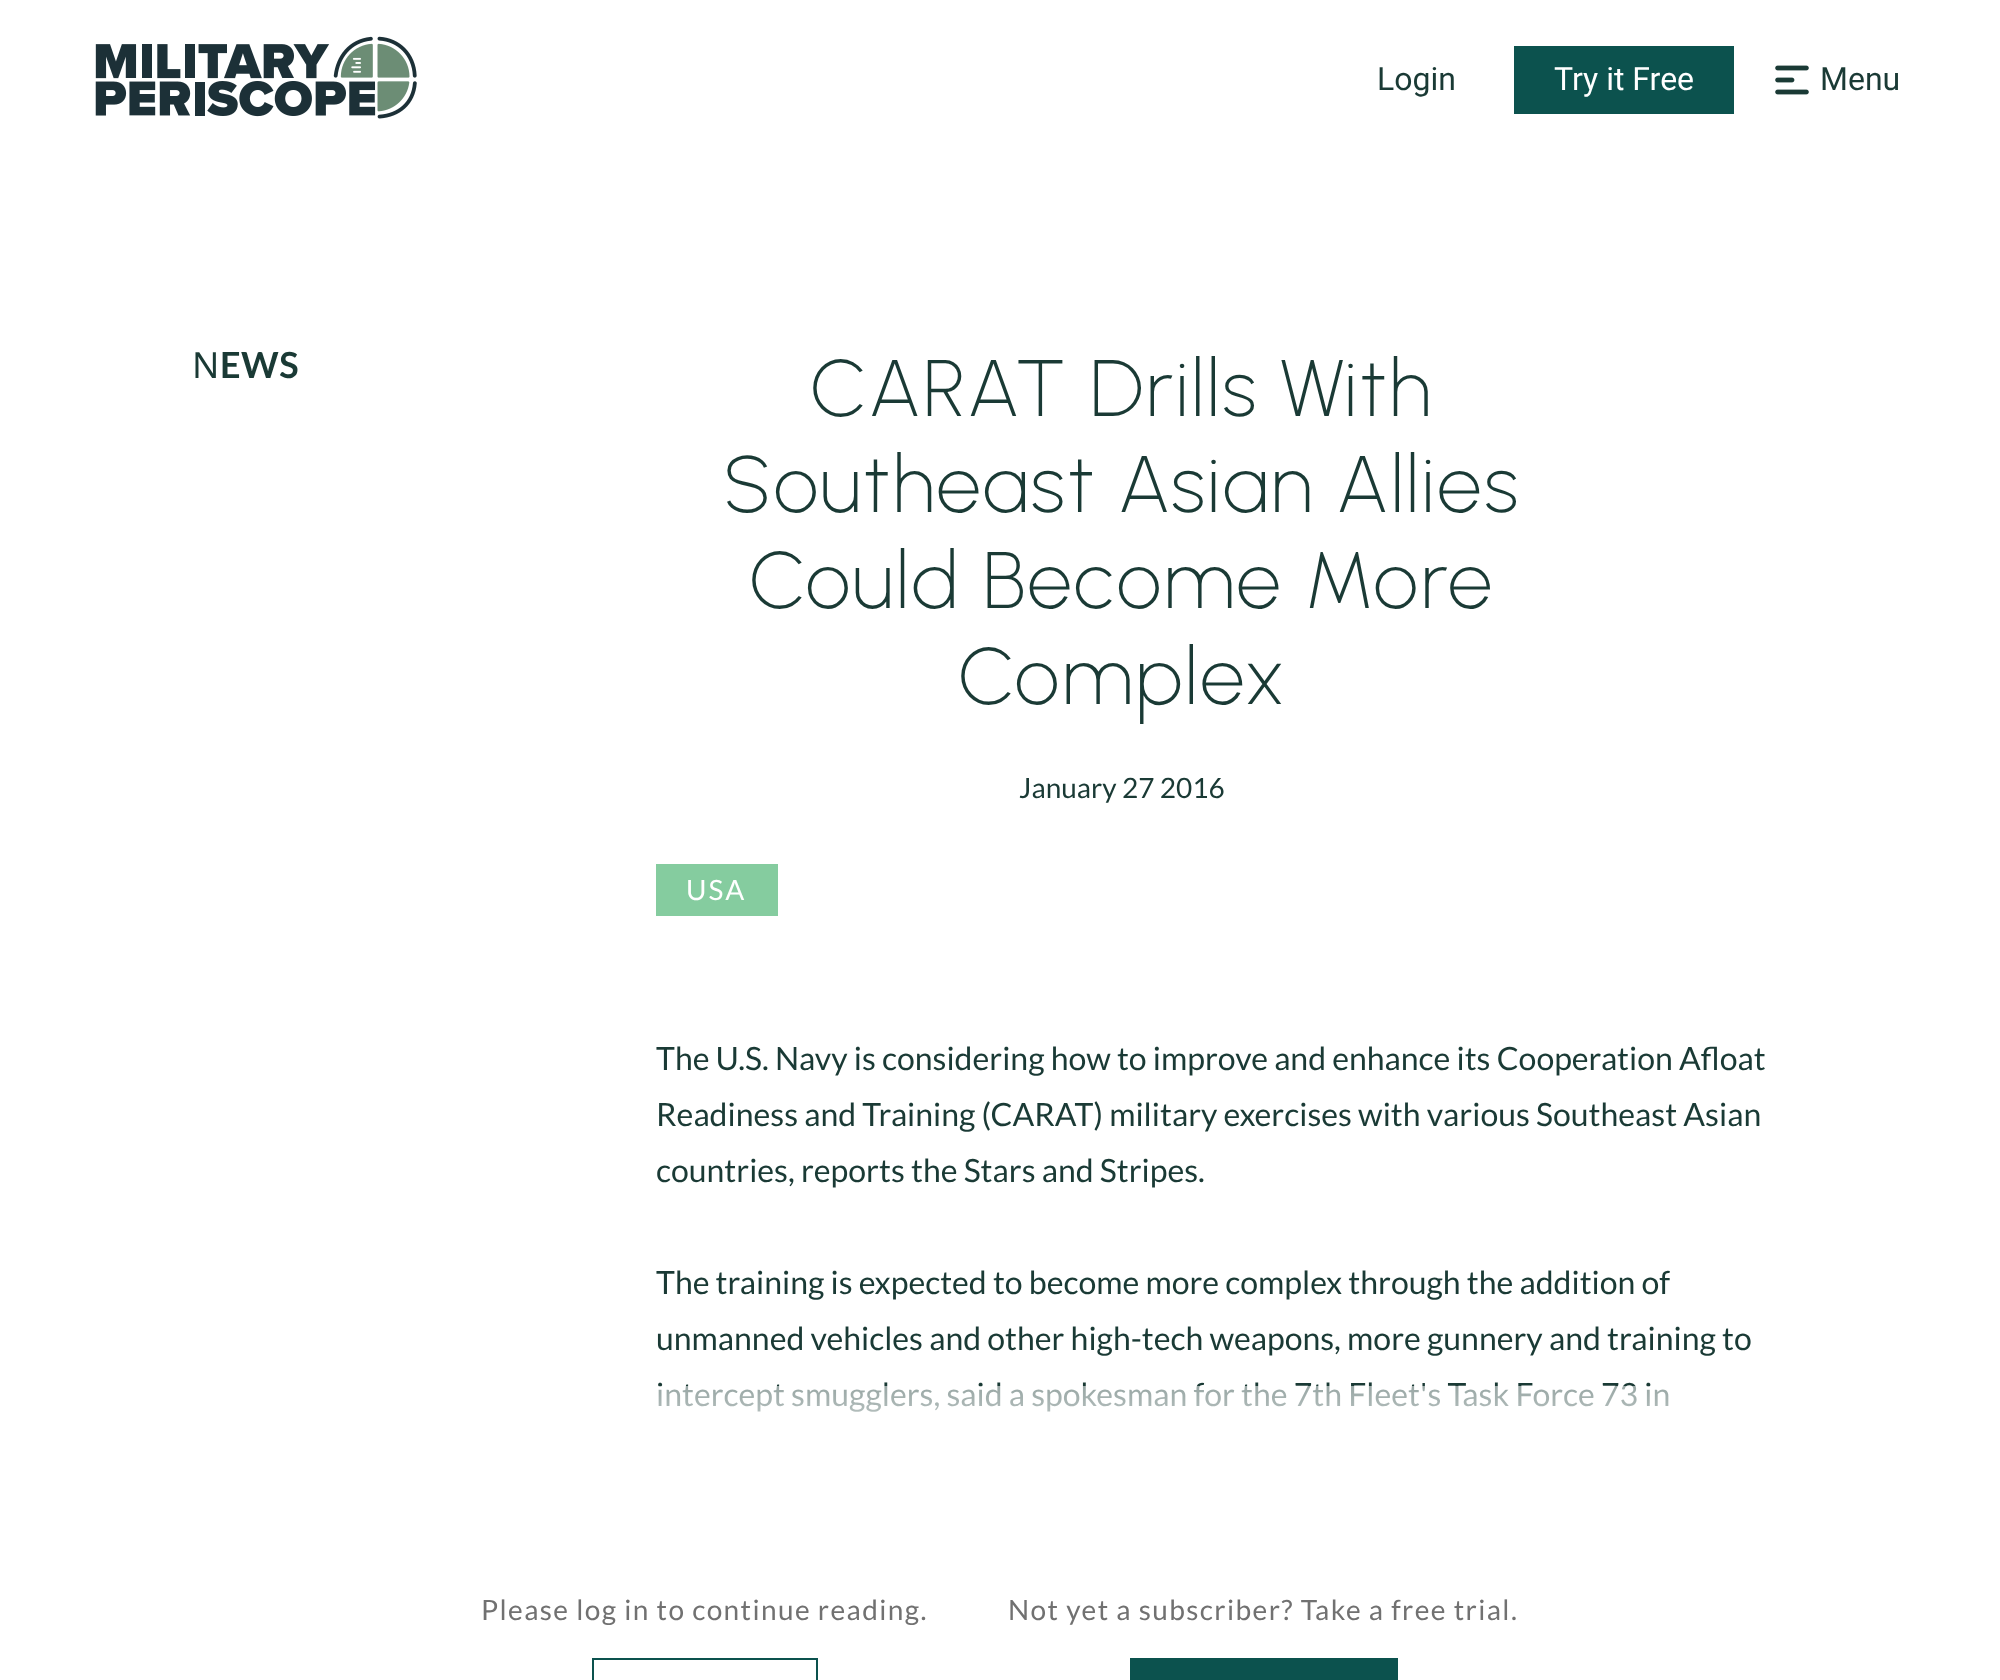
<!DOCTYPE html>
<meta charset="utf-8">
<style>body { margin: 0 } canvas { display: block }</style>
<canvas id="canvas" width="2000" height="1680"></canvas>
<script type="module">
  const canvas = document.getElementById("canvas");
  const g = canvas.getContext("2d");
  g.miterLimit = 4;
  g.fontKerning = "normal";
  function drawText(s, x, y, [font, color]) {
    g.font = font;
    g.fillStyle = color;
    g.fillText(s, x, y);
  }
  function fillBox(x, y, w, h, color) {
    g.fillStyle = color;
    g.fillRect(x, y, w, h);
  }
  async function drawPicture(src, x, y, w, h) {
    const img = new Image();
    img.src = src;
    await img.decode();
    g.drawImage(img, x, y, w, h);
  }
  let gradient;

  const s1 = ["32px Roboto", "#1A3A35"];
  const s2 = ["32px Roboto", "#FFFFFF"];
  const s3 = ["36px Noto Sans", "#1A3A35"];
  const s4 = ["bold 36px Lato", "#1A3A35"];
  const s5 = ["200 80px Urbanist", "#1A3A35"];
  const s6 = ["28px Lato", "#1A3A35"];
  const s7 = ["28px Lato", "#FFFFFF"];
  const s8 = ["32px Lato", "#1A3A35"];
  const s9 = ["28px Lato", "#717171"];

  fillBox(0, 0, 2000, 1680, "#FFFFFF");
  await drawPicture("pic1.png", 95, 36, 322, 83);
  drawText("Login", 1377, 90, s1);
  fillBox(1514, 46, 220, 68, "#0C524E");
  drawText("Try it Free", 1554, 90, s2);
  await drawPicture("pic2.png", 1775, 65, 34, 30);
  drawText("Menu", 1820, 90, s1);
  g.letterSpacing = "0.5px";
  drawText("N", 192, 378, s3);
  drawText("EWS", 220, 378, s4);
  g.letterSpacing = "2.4px";
  drawText("CARAT Drills With", 810, 416, s5);
  drawText("Southeast Asian Allies", 723, 512, s5);
  drawText("Could Become More", 749, 608, s5);
  drawText("Complex", 958, 704, s5);
  g.letterSpacing = "0px";
  drawText("January 27 2016", 1019, 798, s6);
  fillBox(656, 864, 122, 52, "#85CC9F");
  g.letterSpacing = "2px";
  drawText("USA", 686, 900, s7);
  g.letterSpacing = "0px";
  drawText("The U.S. Navy is considering how to improve and enhance its Cooperation Afloat", 656, 1070, s8);
  drawText("Readiness and Training (CARAT) military exercises with various Southeast Asian", 656, 1126, s8);
  drawText("countries, reports the Stars and Stripes.", 656, 1182, s8);
  drawText("The training is expected to become more complex through the addition of", 656, 1294, s8);
  drawText("unmanned vehicles and other high-tech weapons, more gunnery and training to", 656, 1350, s8);
  drawText("intercept smugglers, said a spokesman for the 7th Fleet's Task Force 73 in", 656, 1406, s8);
  gradient = g.createLinearGradient(1000, 1506, 1000, 1256);
  gradient.addColorStop(0.06, "#FFFFFF");
  gradient.addColorStop(1, "rgba(255, 255, 255, 0)");
  g.fillStyle = gradient;
  g.fillRect(658, 1386, 1011, 26);
  g.letterSpacing = "1.4px";
  drawText("Please log in to continue reading.", 481, 1620, s9);
  g.strokeStyle = "#0C524E";
  g.lineWidth = 2;
  g.strokeRect(593, 1659, 224, 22);
  drawText("Not yet a subscriber? Take a free trial.", 1008, 1620, s9);
  fillBox(1130, 1658, 268, 22, "#0C524E");
</script>
